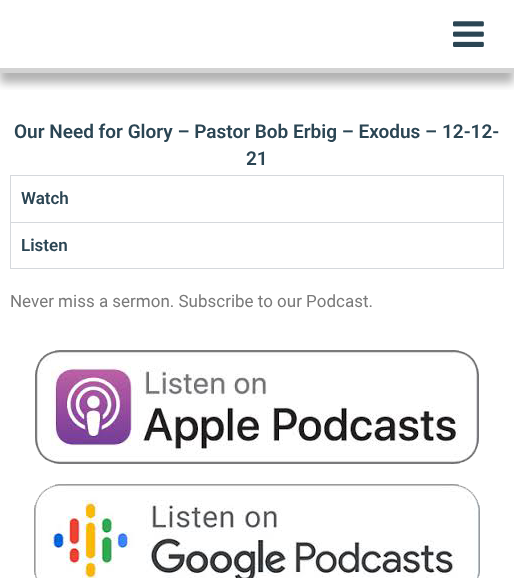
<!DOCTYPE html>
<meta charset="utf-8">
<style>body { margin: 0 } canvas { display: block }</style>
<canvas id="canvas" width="514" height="578"></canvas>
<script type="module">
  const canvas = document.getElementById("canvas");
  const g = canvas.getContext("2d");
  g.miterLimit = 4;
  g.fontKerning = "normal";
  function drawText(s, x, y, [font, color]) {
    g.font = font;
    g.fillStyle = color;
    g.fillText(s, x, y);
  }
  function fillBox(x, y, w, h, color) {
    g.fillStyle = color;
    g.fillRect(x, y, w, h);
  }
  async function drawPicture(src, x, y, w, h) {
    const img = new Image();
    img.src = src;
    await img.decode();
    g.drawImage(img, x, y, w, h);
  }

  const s1 = ["600 19px Roboto", "#2B4553"];
  const s2 = ["600 17px Roboto", "#2B4553"];
  const s3 = ["17px Roboto", "#7A7A7A"];

  fillBox(0, 0, 514, 578, "#FFFFFF");
  g.save();
  g.beginPath();
  g.rect(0, 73, 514, 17);
  g.clip();
  g.fillStyle = "rgba(0, 0, 0, 0.3)";
  g.filter = "blur(5px)";
  g.beginPath();
  g.rect(0, 10, 514, 73);
  g.fill();
  g.filter = "none";
  g.restore();
  fillBox(0, 68, 514, 5, "#D3D3D3");
  await drawPicture("pic1.png", 453, 21, 31, 26);
  drawText("Our Need for Glory – Pastor Bob Erbig – Exodus – 12-12-", 14, 138, s1);
  drawText("21", 246, 165, s1);
  fillBox(10, 268, 494, 1, "#D5D8DC");
  fillBox(10, 175, 494, 1, "#D5D8DC");
  fillBox(503, 175, 1, 47, "#D5D8DC");
  fillBox(10, 175, 1, 47, "#D5D8DC");
  drawText("Watch", 21, 204, s2);
  fillBox(10, 222, 494, 1, "#D5D8DC");
  fillBox(503, 222, 1, 46, "#D5D8DC");
  fillBox(10, 222, 1, 46, "#D5D8DC");
  drawText("Listen", 21, 251, s2);
  drawText("Never miss a sermon. Subscribe to our Podcast.", 10, 307, s3);
  await drawPicture("pic2.png", 35, 350, 444, 114);
  await drawPicture("pic3.png", 34, 484, 446, 94);
</script>
